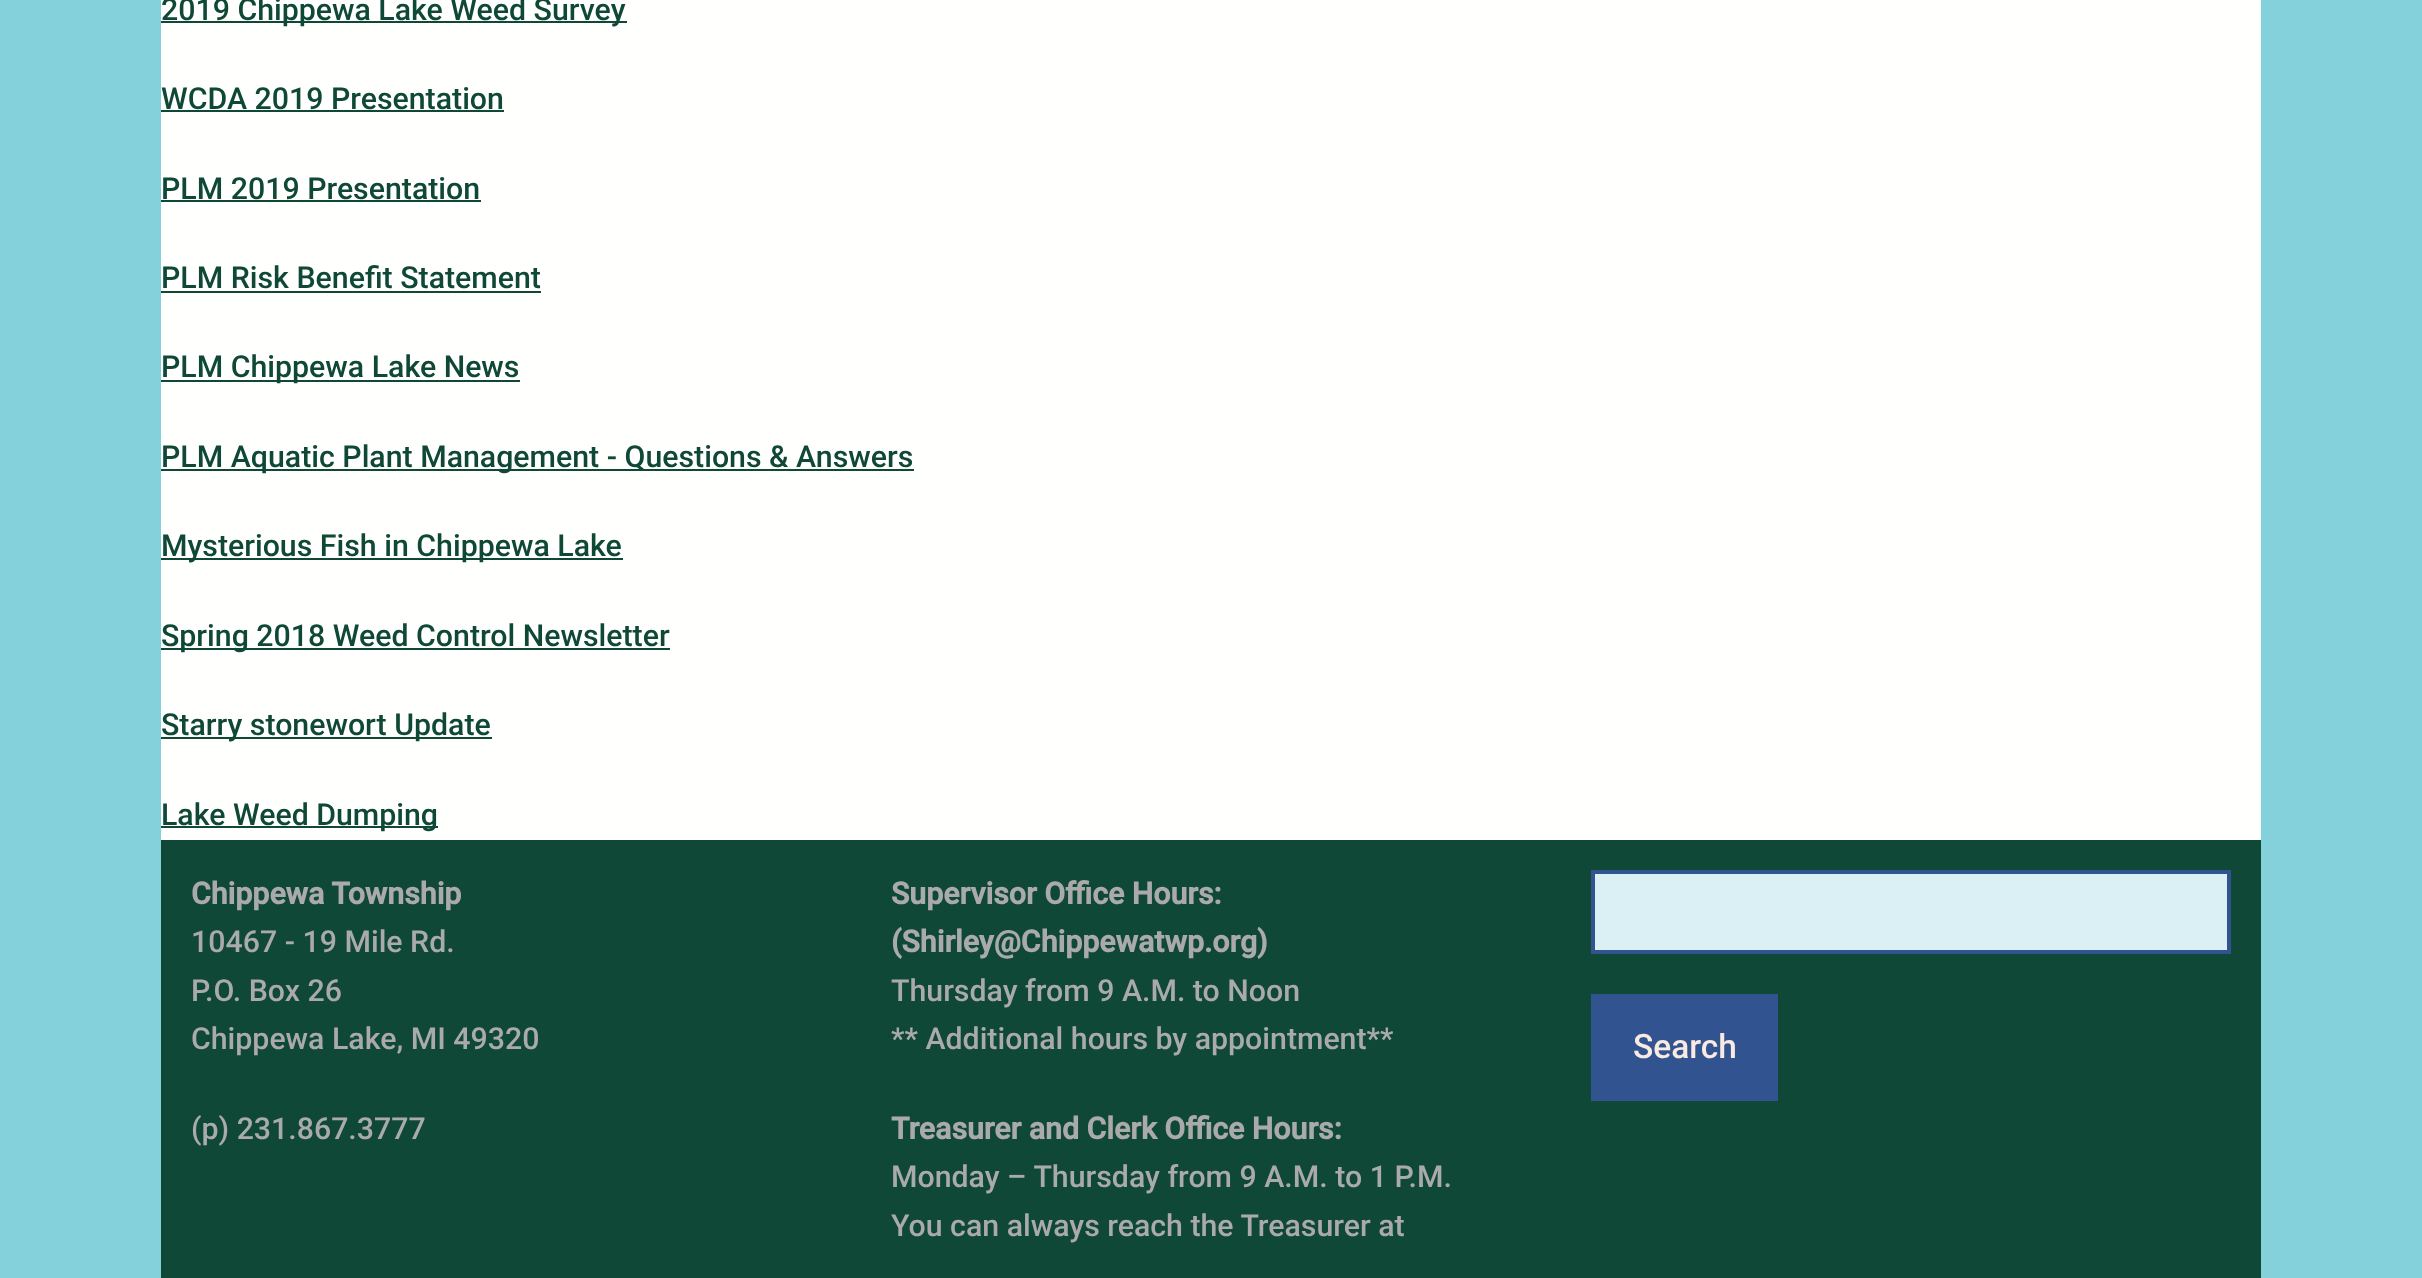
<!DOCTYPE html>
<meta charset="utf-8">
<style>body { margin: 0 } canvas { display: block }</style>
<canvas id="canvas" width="2422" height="1278"></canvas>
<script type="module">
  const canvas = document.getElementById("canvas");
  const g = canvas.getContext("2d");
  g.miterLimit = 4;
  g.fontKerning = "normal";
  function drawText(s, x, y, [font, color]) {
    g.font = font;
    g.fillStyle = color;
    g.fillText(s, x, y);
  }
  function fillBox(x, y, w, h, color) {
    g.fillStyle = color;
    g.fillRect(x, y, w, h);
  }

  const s1 = ["500 30.3px Roboto", "#0F4837"];
  const s2 = ["bold 30.3px Roboto", "#AAAAAA"];
  const s3 = ["500 30.3px Roboto", "#AAAAAA"];
  const s4 = ["500 33.5px Roboto", "#F9EAE2"];

  fillBox(0, 0, 2422, 1278, "#84D1DB");
  fillBox(161, 0, 2100, 840, "#FFFFFE");
  fillBox(161, 21, 466, 2, "#0F4837");
  drawText("2019 Chippewa Lake Weed Survey", 161, 20, s1);
  drawText("WCDA 2019 Presentation", 161, 109, s1);
  fillBox(161, 110, 343, 2, "#0F4837");
  drawText("PLM 2019 Presentation", 161, 199, s1);
  fillBox(161, 200, 320, 2, "#0F4837");
  drawText("PLM Risk Benefit Statement", 161, 288, s1);
  fillBox(161, 291, 380, 2, "#0F4837");
  fillBox(161, 380, 359, 2, "#0F4837");
  drawText("PLM Chippewa Lake News", 161, 377, s1);
  fillBox(161, 469, 753, 2, "#0F4837");
  drawText("PLM Aquatic Plant Management - Questions & Answers", 161, 467, s1);
  fillBox(161, 558, 462, 2, "#0F4837");
  drawText("Mysterious Fish in Chippewa Lake", 161, 556, s1);
  fillBox(161, 648, 509, 2, "#0F4837");
  drawText("Spring 2018 Weed Control Newsletter", 161, 646, s1);
  fillBox(161, 737, 331, 2, "#0F4837");
  drawText("Starry stonewort Update", 161, 735, s1);
  fillBox(161, 826, 277, 2, "#0F4837");
  drawText("Lake Weed Dumping", 161, 825, s1);
  fillBox(161, 840, 2100, 438, "#0F4837");
  drawText("Chippewa Township", 191, 904, s2);
  drawText("10467 - 19 Mile Rd.", 191, 952, s3);
  drawText("P.O. Box 26", 191, 1001, s3);
  drawText("Chippewa Lake, MI 49320", 191, 1049, s3);
  drawText("(p) 231.867.3777", 191, 1139, s3);
  drawText("Supervisor Office Hours:", 891, 904, s2);
  drawText("(Shirley@Chippewatwp.org)", 891, 952, s2);
  drawText("Thursday from 9 A.M. to Noon", 891, 1001, s3);
  drawText("** Additional hours by appointment**", 891, 1049, s3);
  drawText("Treasurer and Clerk Office Hours:", 891, 1139, s2);
  drawText("Monday – Thursday from 9 A.M. to 1 P.M.", 891, 1187, s3);
  drawText("You can always reach the Treasurer at", 891, 1236, s3);
  g.fillStyle = "#DBF0F5";
  g.beginPath();
  g.rect(1593, 872, 636, 80);
  g.fill();
  g.strokeStyle = "#315390";
  g.lineWidth = 4;
  g.stroke();
  fillBox(1591, 994, 187, 107, "#315390");
  drawText("Search", 1633, 1058, s4);
</script>
